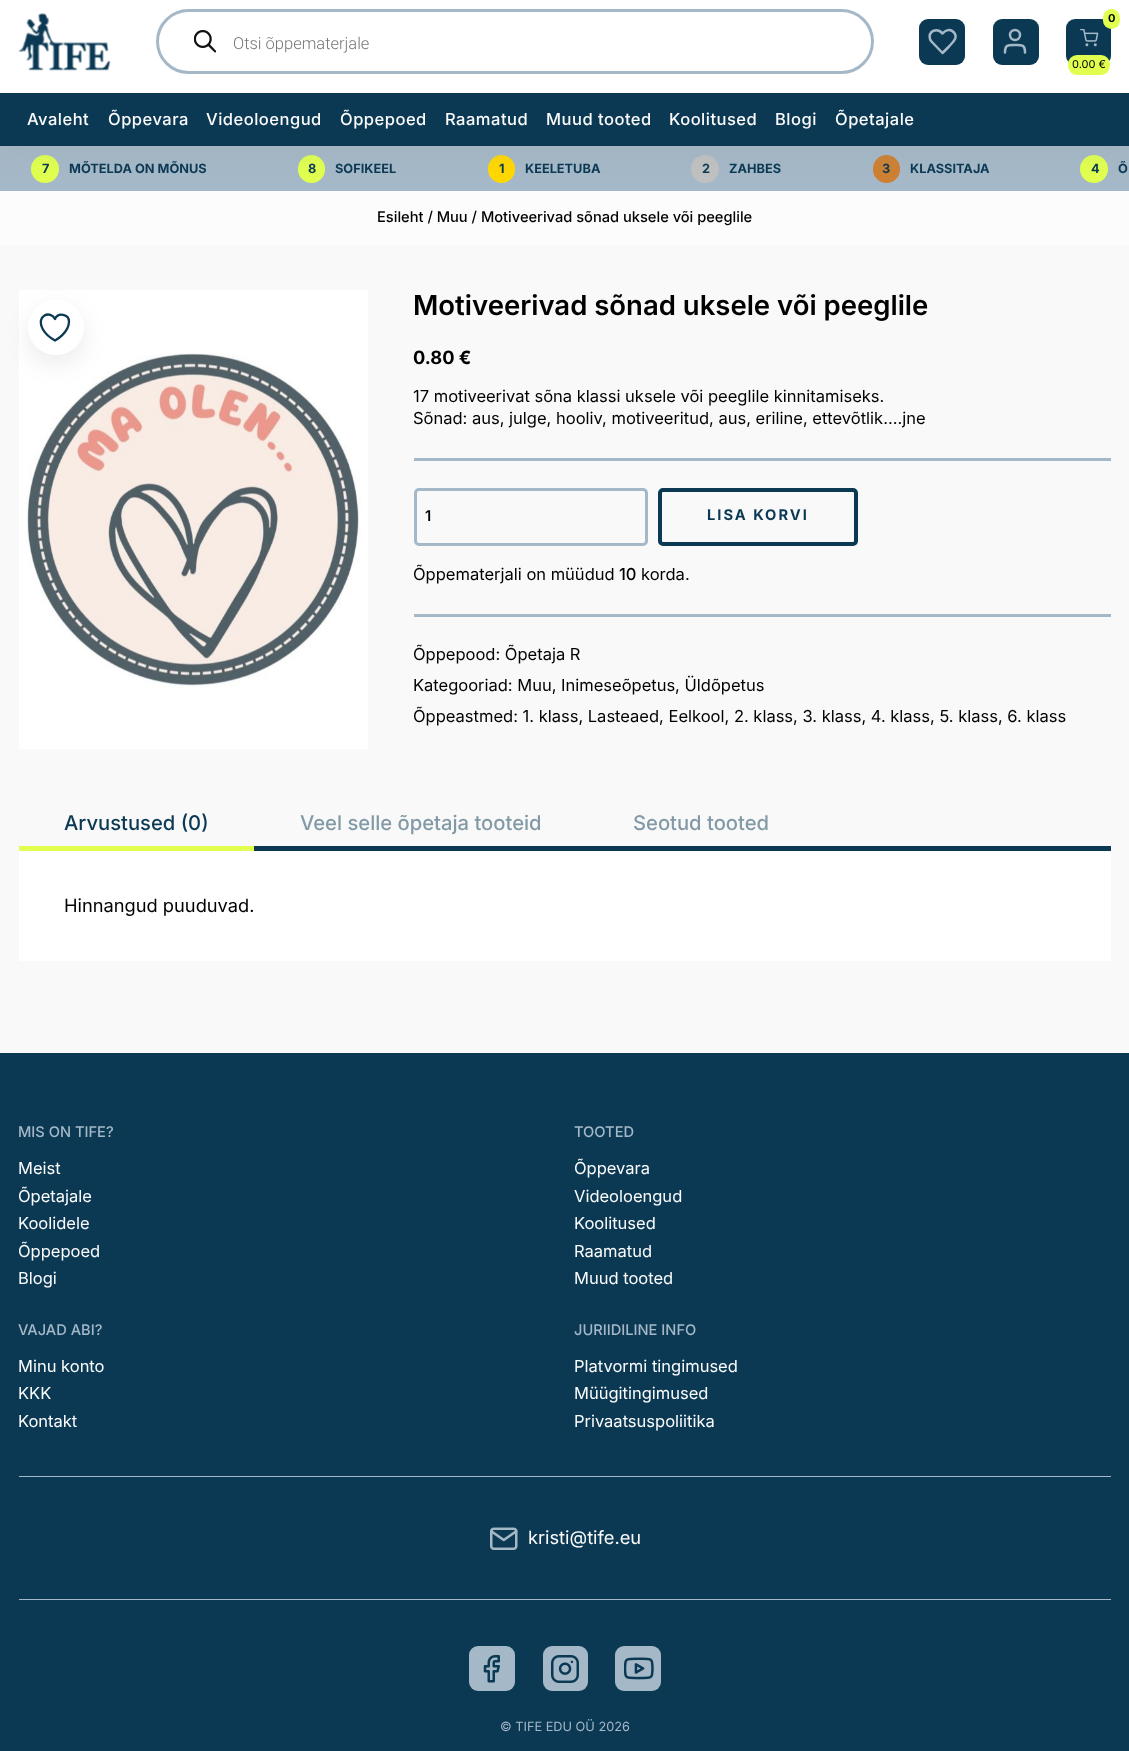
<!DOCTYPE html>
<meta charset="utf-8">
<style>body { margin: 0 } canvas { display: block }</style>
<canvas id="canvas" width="1129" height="1751"></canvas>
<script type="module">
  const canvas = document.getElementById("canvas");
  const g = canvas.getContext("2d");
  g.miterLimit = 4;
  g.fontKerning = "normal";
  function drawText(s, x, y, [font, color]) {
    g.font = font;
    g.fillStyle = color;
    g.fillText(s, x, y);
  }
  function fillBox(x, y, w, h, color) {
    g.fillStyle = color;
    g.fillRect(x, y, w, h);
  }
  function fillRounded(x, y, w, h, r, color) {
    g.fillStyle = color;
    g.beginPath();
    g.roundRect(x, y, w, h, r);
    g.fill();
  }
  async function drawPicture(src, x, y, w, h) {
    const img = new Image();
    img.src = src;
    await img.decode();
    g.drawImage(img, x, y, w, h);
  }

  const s1 = ["300 16.5px Roboto", "#777777"];
  const s2 = ["bold 11px Inter", "#000000"];
  const s3 = ["11px Inter", "#000000"];
  const s4 = ["500 16.5px Inter", "#FCFCFC"];
  const s5 = ["bold 12.75px Inter", "#0B3954"];
  const s6 = ["500 14.65px Inter", "#000000"];
  const s7 = ["600 27.5px Inter", "#000000"];
  const s8 = ["bold 18.25px Inter", "#000000"];
  const s9 = ["16.5px Inter", "#000000"];
  const s10 = ["600 14.65px Inter", "#000000"];
  const s11 = ["bold 14.65px Inter", "#0B3954"];
  const s12 = ["500 16.5px Inter", "#000000"];
  const s13 = ["500 20.2px Inter", "#0B3954"];
  const s14 = ["500 20.2px Inter", "#8299A6"];
  const s15 = ["18.25px Inter", "#000000"];
  const s16 = ["500 14.65px Inter", "#A5B8C7"];
  const s17 = ["16.5px Inter", "#FCFCFC"];
  const s18 = ["18.25px Inter", "#FCFCFC"];
  const s19 = ["12.75px Inter", "#A5B8C7"];

  fillBox(0, 0, 1129, 1751, "#F9F9F9");
  fillBox(0, 146, 1129, 45, "#A5B8C7");
  g.fillStyle = "#E0FF4F";
  g.beginPath();
  g.arc(45, 169, 14, 0, Math.PI * 2);
  g.fill();
  fillRounded(298, 155, 27, 28, 13.5, "#E0FF4F");
  fillRounded(488, 155, 27, 28, 13.5, "#FFD700");
  g.fillStyle = "#C0C0C0";
  g.beginPath();
  g.arc(705, 169, 14, 0, Math.PI * 2);
  g.fill();
  fillRounded(873, 155, 27, 28, 13.5, "#CD7F32");
  g.fillStyle = "#E0FF4F";
  g.beginPath();
  g.arc(1094, 169, 14, 0, Math.PI * 2);
  g.fill();
  g.fillStyle = "rgba(150, 158, 166, 0.2)";
  g.filter = "blur(11px)";
  g.beginPath();
  g.rect(0, 8, 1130, 146);
  g.fill();
  g.filter = "none";
  fillBox(0, 0, 1129, 93, "#FFFFFF");
  await drawPicture("pic1.png", 18, 13, 93, 58);
  g.beginPath();
  g.roundRect(157.5, 10.5, 715, 62, 31);
  g.strokeStyle = "#A5B8C7";
  g.lineWidth = 3;
  g.stroke();
  await drawPicture("pic2.png", 194, 30, 22, 23);
  drawText("Otsi õppematerjale", 233, 49, s1);
  fillRounded(919, 19, 46, 46, 9, "#0B3954");
  g.beginPath();
  g.moveTo(953.5, 32);
  g.bezierCurveTo(950, 28.5, 945.5, 30, 942.5, 33.5);
  g.lineTo(941, 32);
  g.bezierCurveTo(938.5, 29.5, 934, 29.5, 931.5, 32);
  g.bezierCurveTo(929, 34.5, 929, 39, 931.5, 41.5);
  g.lineTo(942.5, 53);
  g.lineTo(949, 46.5);
  g.bezierCurveTo(952.5, 42.5, 959, 37.5, 953.5, 32);
  g.closePath();
  g.lineWidth = 2.5;
  g.lineCap = "round";
  g.lineJoin = "round";
  g.stroke();
  fillRounded(993, 19, 46, 46, 9, "#0B3954");
  g.beginPath();
  g.moveTo(1025, 52.5);
  g.bezierCurveTo(1025, 44.5, 1022, 45, 1015, 45);
  g.bezierCurveTo(1008, 45, 1005, 44.5, 1005, 52.5);
  g.stroke();
  g.beginPath();
  g.arc(1015, 35, 5, 0, Math.PI * 2);
  g.stroke();
  fillRounded(1066, 19, 45, 46, 9, "#0B3954");
  fillRounded(1103, 9, 17, 20, 8.5, "#E0FF4F");
  drawText("0", 1108, 22, s2);
  await drawPicture("pic3.png", 1080, 29, 19, 18);
  fillRounded(1068, 55, 42, 20, 9, "#E0FF4F");
  drawText("0.00 €", 1072, 68, s3);
  fillBox(0, 93, 1129, 53, "#0B3954");
  g.letterSpacing = "0.5px";
  drawText("Avaleht", 27, 125, s4);
  drawText("Õppevara", 108, 125, s4);
  drawText("Videoloengud", 206, 125, s4);
  drawText("Õppepoed", 340, 125, s4);
  drawText("Raamatud", 445, 125, s4);
  drawText("Muud tooted", 546, 125, s4);
  drawText("Koolitused", 669, 125, s4);
  drawText("Blogi", 775, 125, s4);
  drawText("Õpetajale", 835, 125, s4);
  g.letterSpacing = "0px";
  drawText("7", 42, 173, s5);
  drawText("MÕTELDA ON MÕNUS", 69, 173, s5);
  drawText("8", 308, 173, s5);
  drawText("SOFIKEEL", 335, 173, s5);
  drawText("1", 499, 173, s5);
  drawText("KEELETUBA", 525, 173, s5);
  drawText("2", 702, 173, s5);
  drawText("ZAHBES", 729, 173, s5);
  drawText("3", 882, 173, s5);
  drawText("KLASSITAJA", 910, 173, s5);
  drawText("4", 1091, 173, s5);
  drawText("Õ", 1118, 173, s5);
  fillBox(0, 191, 1129, 54, "#FCFCFC");
  drawText("Esileht / Muu / Motiveerivad sõnad uksele või peeglile", 377, 222, s6);
  fillBox(19, 290, 349, 459, "#FFFFFF");
  await drawPicture("pic4.png", 26, 353, 336, 335);
  g.fillStyle = "rgba(0, 0, 0, 0.08)";
  g.filter = "blur(12px)";
  g.beginPath();
  g.roundRect(28, 309, 56, 55, 27.5);
  g.fill();
  g.filter = "none";
  fillRounded(28, 300, 56, 55, 27.5, "#FFFFFF");
  g.beginPath();
  g.moveTo(69, 321.5);
  g.bezierCurveTo(69, 314, 58, 312, 55, 319);
  g.bezierCurveTo(51, 310, 35, 315, 43, 329.5);
  g.bezierCurveTo(45.5, 334, 50.5, 338, 55, 340.5);
  g.bezierCurveTo(55, 340.5, 69, 333, 69, 321.5);
  g.closePath();
  g.strokeStyle = "#0B3954";
  g.lineWidth = 2.3;
  g.stroke();
  drawText("Motiveerivad sõnad uksele või peeglile", 413, 315, s7);
  drawText("0.80 €", 413, 364, s8);
  drawText("17 motiveerivat sõna klassi uksele või peeglile kinnitamiseks.", 413, 402, s9);
  drawText("Sõnad: aus, julge, hooliv, motiveeritud, aus, eriline, ettevõtlik….jne", 413, 424, s9);
  fillBox(414, 458, 697, 3, "#A5B8C7");
  g.beginPath();
  g.roundRect(415.5, 489.5, 231, 55, 3.5);
  g.strokeStyle = "#A5B8C7";
  g.lineWidth = 3;
  g.lineJoin = "miter";
  g.stroke();
  drawText("1", 425, 521, s10);
  g.beginPath();
  g.roundRect(660, 490, 196, 54, 3);
  g.strokeStyle = "#0B3954";
  g.lineWidth = 4;
  g.stroke();
  g.letterSpacing = "2px";
  drawText("LISA KORVI", 707, 520, s11);
  g.letterSpacing = "0px";
  drawText("Õppematerjali on müüdud", 413, 580, s9);
  drawText("10", 619, 580, s12);
  drawText("korda.", 641, 580, s9);
  fillBox(414, 614, 697, 3, "#A5B8C7");
  drawText("Õppepood: Õpetaja R", 413, 660, s9);
  drawText("Kategooriad: Muu, Inimeseõpetus, Üldõpetus", 413, 691, s9);
  drawText("Õppeastmed: 1. klass, Lasteaed, Eelkool, 2. klass, 3. klass, 4. klass, 5. klass, 6. klass", 413, 722, s9);
  drawText("Arvustused (0)", 64, 830, s13);
  fillBox(19, 846, 235, 5, "#E0FF4F");
  drawText("Veel selle õpetaja tooteid", 300, 830, s14);
  drawText("Seotud tooted", 633, 830, s14);
  fillBox(19, 851, 1092, 110, "#FFFFFF");
  fillBox(254, 846, 857, 5, "#0B3954");
  drawText("Hinnangud puuduvad.", 64, 912, s15);
  fillBox(0, 1053, 1129, 698, "#0B3954");
  drawText("MIS ON TIFE?", 18, 1137, s16);
  drawText("Meist", 18, 1174, s17);
  drawText("Õpetajale", 18, 1202, s17);
  drawText("Koolidele", 18, 1229, s17);
  drawText("Õppepoed", 18, 1257, s17);
  drawText("Blogi", 18, 1284, s17);
  drawText("TOOTED", 574, 1137, s16);
  drawText("Õppevara", 574, 1174, s17);
  drawText("Videoloengud", 574, 1202, s17);
  drawText("Koolitused", 574, 1229, s17);
  drawText("Raamatud", 574, 1257, s17);
  drawText("Muud tooted", 574, 1284, s17);
  drawText("VAJAD ABI?", 18, 1335, s16);
  drawText("Minu konto", 18, 1372, s17);
  drawText("KKK", 18, 1399, s17);
  drawText("Kontakt", 18, 1427, s17);
  drawText("JURIIDILINE INFO", 574, 1335, s16);
  drawText("Platvormi tingimused", 574, 1372, s17);
  drawText("Müügitingimused", 574, 1399, s17);
  drawText("Privaatsuspoliitika", 574, 1427, s17);
  fillBox(19, 1476, 1092, 1, "#A5B8C7");
  await drawPicture("pic5.png", 490, 1527, 28, 23);
  drawText("kristi@tife.eu", 528, 1544, s18);
  fillBox(19, 1599, 1092, 1, "#A5B8C7");
  fillRounded(469, 1646, 46, 45, 9, "#A5B8C7");
  await drawPicture("pic6.png", 483, 1655, 17, 28);
  fillRounded(543, 1646, 45, 45, 9, "#A5B8C7");
  await drawPicture("pic7.png", 551, 1655, 28, 28);
  fillRounded(615, 1646, 46, 45, 9, "#A5B8C7");
  await drawPicture("pic8.png", 624, 1657, 30, 23);
  drawText("© TIFE EDU OÜ 2026", 500, 1731, s19);
</script>
